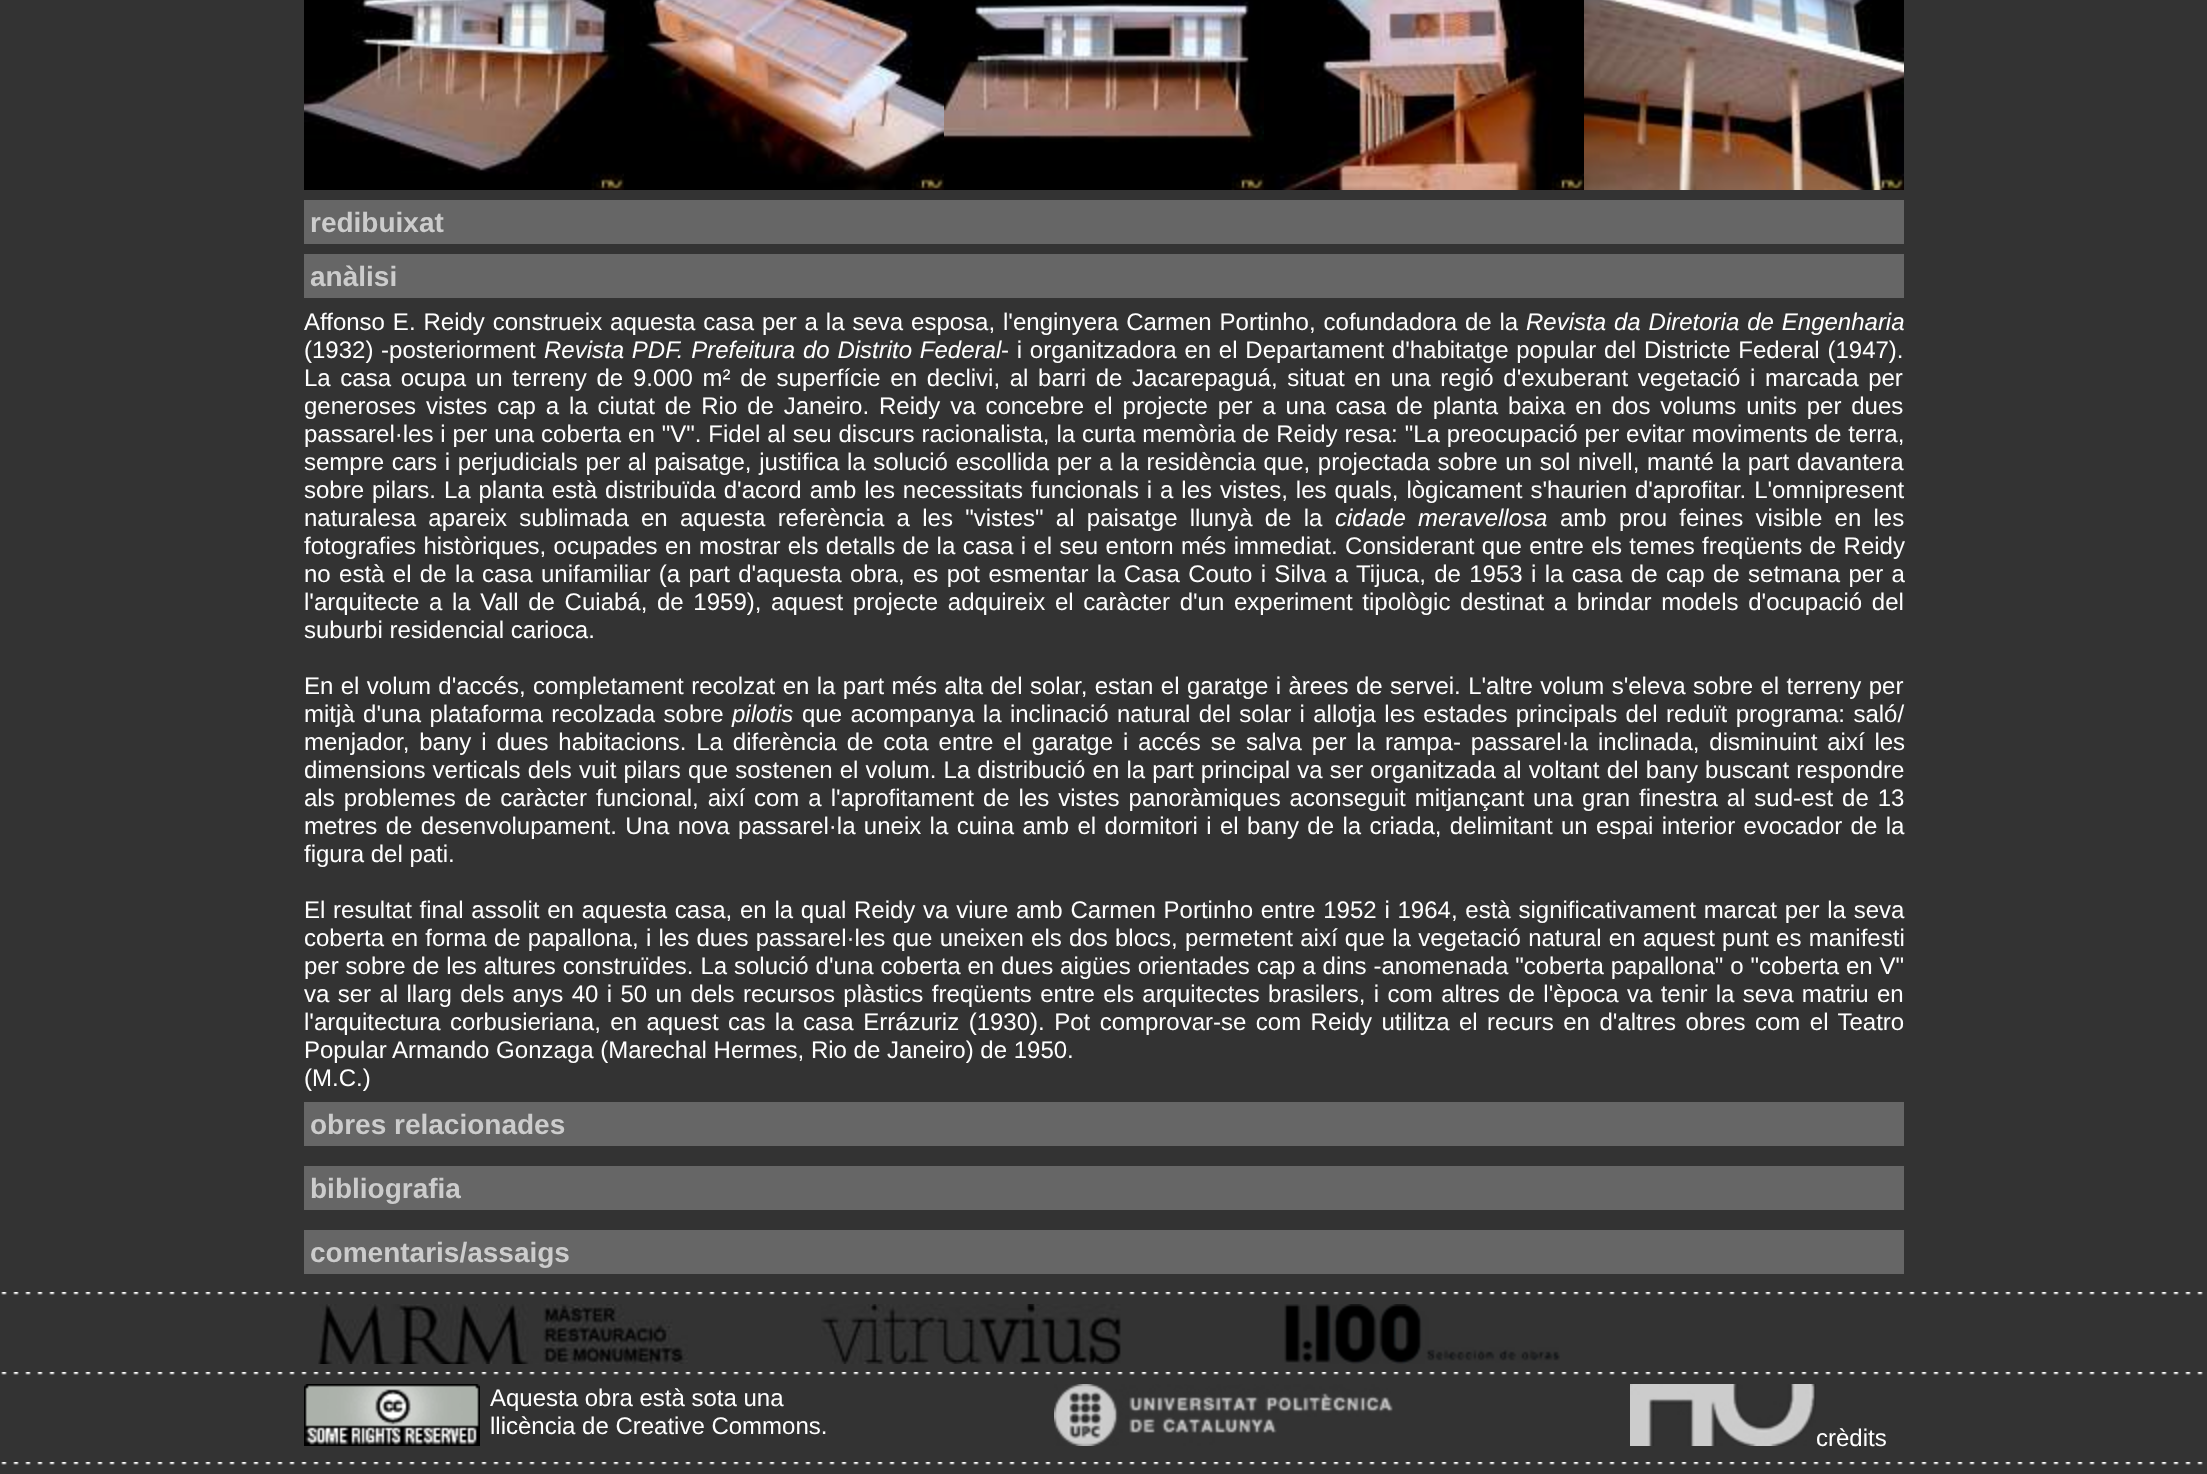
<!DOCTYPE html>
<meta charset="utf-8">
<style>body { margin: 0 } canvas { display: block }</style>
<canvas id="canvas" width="2207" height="1474"></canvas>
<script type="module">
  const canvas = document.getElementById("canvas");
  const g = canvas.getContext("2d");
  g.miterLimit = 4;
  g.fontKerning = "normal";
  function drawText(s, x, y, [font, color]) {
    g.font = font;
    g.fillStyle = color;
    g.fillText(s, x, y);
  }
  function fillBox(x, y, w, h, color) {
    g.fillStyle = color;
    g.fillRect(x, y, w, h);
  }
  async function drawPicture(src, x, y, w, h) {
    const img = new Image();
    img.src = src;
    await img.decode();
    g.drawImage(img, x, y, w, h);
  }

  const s1 = ["bold 28px Liberation Sans", "#CCCCCC"];
  const s2 = ["24px Liberation Sans", "#FFFFFF"];
  const s3 = ["italic 24px Liberation Sans", "#FFFFFF"];

  fillBox(0, 0, 2207, 1474, "#333333");
  await drawPicture("pic1.png", 304, 0, 320, 190);
  await drawPicture("pic2.png", 624, 0, 320, 190);
  await drawPicture("pic3.png", 944, 0, 320, 190);
  await drawPicture("pic4.png", 1264, 0, 320, 190);
  await drawPicture("pic5.png", 1584, 0, 320, 190);
  fillBox(304, 200, 1600, 44, "#666666");
  drawText("redibuixat", 310, 232, s1);
  fillBox(304, 254, 1600, 44, "#666666");
  drawText("anàlisi", 310, 286, s1);
  g.wordSpacing = "1.25px";
  drawText("Affonso E. Reidy construeix aquesta casa per a la seva esposa, l'enginyera Carmen Portinho, cofundadora de la", 304, 330, s2);
  drawText("Revista da Diretoria de Engenharia", 1526, 330, s3);
  g.wordSpacing = "1px";
  drawText("(1932) -posteriorment", 304, 358, s2);
  g.wordSpacing = "1.1px";
  drawText("Revista PDF. Prefeitura do Distrito Federal", 544, 358, s3);
  drawText("- i organitzadora en el Departament d'habitatge popular del Districte Federal (1947).", 1001, 358, s2);
  g.wordSpacing = "3px";
  drawText("La casa ocupa un terreny de 9.000 m² de superfície en declivi, al barri de Jacarepaguá, situat en una regió d'exuberant vegetació i marcada per", 304, 386, s2);
  g.wordSpacing = "3.2px";
  drawText("generoses vistes cap a la ciutat de Rio de Janeiro. Reidy va concebre el projecte per a una casa de planta baixa en dos volums units per dues", 304, 414, s2);
  g.wordSpacing = "0.25px";
  drawText("passarel·les i per una coberta en \"V\". Fidel al seu discurs racionalista, la curta memòria de Reidy resa: \"La preocupació per evitar moviments de terra,", 304, 442, s2);
  g.wordSpacing = "1px";
  drawText("sempre cars i perjudicials per al paisatge, justifica la solució escollida per a la residència que, projectada sobre un sol nivell, manté la part davantera", 304, 470, s2);
  g.wordSpacing = "1.25px";
  drawText("sobre pilars. La planta està distribuïda d'acord amb les necessitats funcionals i a les vistes, les quals, lògicament s'haurien d'aprofitar. L'omnipresent", 304, 498, s2);
  g.wordSpacing = "5.6px";
  drawText("naturalesa apareix sublimada en aquesta referència a les \"vistes\" al paisatge llunyà de la", 304, 526, s2);
  drawText("cidade meravellosa", 1335, 526, s3);
  drawText("amb prou feines visible en les", 1560, 526, s2);
  g.wordSpacing = "0.7px";
  drawText("fotografies històriques, ocupades en mostrar els detalls de la casa i el seu entorn més immediat. Considerant que entre els temes freqüents de Reidy", 304, 554, s2);
  g.wordSpacing = "1.7px";
  drawText("no està el de la casa unifamiliar (a part d'aquesta obra, es pot esmentar la Casa Couto i Silva a Tijuca, de 1953 i la casa de cap de setmana per a", 304, 582, s2);
  g.wordSpacing = "3px";
  drawText("l'arquitecte a la Vall de Cuiabá, de 1959), aquest projecte adquireix el caràcter d'un experiment tipològic destinat a brindar models d'ocupació del", 304, 610, s2);
  g.wordSpacing = "0px";
  drawText("suburbi residencial carioca.", 304, 638, s2);
  g.wordSpacing = "0.75px";
  drawText("En el volum d'accés, completament recolzat en la part més alta del solar, estan el garatge i àrees de servei. L'altre volum s'eleva sobre el terreny per", 304, 694, s2);
  g.wordSpacing = "1.7px";
  drawText("mitjà d'una plataforma recolzada sobre", 304, 722, s2);
  g.wordSpacing = "0px";
  drawText("pilotis", 732, 722, s3);
  g.wordSpacing = "1.7px";
  drawText("que acompanya la inclinació natural del solar i allotja les estades principals del reduït programa: saló/", 802, 722, s2);
  g.wordSpacing = "3.2px";
  drawText("menjador, bany i dues habitacions. La diferència de cota entre el garatge i accés se salva per la rampa- passarel·la inclinada, disminuint així les", 304, 750, s2);
  g.wordSpacing = "0.5px";
  drawText("dimensions verticals dels vuit pilars que sostenen el volum. La distribució en la part principal va ser organitzada al voltant del bany buscant respondre", 304, 778, s2);
  g.wordSpacing = "2.3px";
  drawText("als problemes de caràcter funcional, així com a l'aprofitament de les vistes panoràmiques aconseguit mitjançant una gran finestra al sud-est de 13", 304, 806, s2);
  g.wordSpacing = "1.7px";
  drawText("metres de desenvolupament. Una nova passarel·la uneix la cuina amb el dormitori i el bany de la criada, delimitant un espai interior evocador de la", 304, 834, s2);
  g.wordSpacing = "0px";
  drawText("figura del pati.", 304, 862, s2);
  g.wordSpacing = "1.1px";
  drawText("El resultat final assolit en aquesta casa, en la qual Reidy va viure amb Carmen Portinho entre 1952 i 1964, està significativament marcat per la seva", 304, 918, s2);
  g.wordSpacing = "0.6px";
  drawText("coberta en forma de papallona, i les dues passarel·les que uneixen els dos blocs, permetent així que la vegetació natural en aquest punt es manifesti", 304, 946, s2);
  g.wordSpacing = "0.25px";
  drawText("per sobre de les altures construïdes. La solució d'una coberta en dues aigües orientades cap a dins -anomenada \"coberta papallona\" o \"coberta en V\"", 304, 974, s2);
  g.wordSpacing = "1.7px";
  drawText("va ser al llarg dels anys 40 i 50 un dels recursos plàstics freqüents entre els arquitectes brasilers, i com altres de l'època va tenir la seva matriu en", 304, 1002, s2);
  g.wordSpacing = "2.8px";
  drawText("l'arquitectura corbusieriana, en aquest cas la casa Errázuriz (1930). Pot comprovar-se com Reidy utilitza el recurs en d'altres obres com el Teatro", 304, 1030, s2);
  g.wordSpacing = "0px";
  drawText("Popular Armando Gonzaga (Marechal Hermes, Rio de Janeiro) de 1950.", 304, 1058, s2);
  drawText("(M.C.)", 304, 1086, s2);
  fillBox(304, 1102, 1600, 44, "#666666");
  drawText("obres relacionades", 310, 1134, s1);
  fillBox(304, 1166, 1600, 44, "#666666");
  drawText("bibliografia", 310, 1198, s1);
  fillBox(304, 1230, 1600, 44, "#666666");
  drawText("comentaris/assaigs", 310, 1262, s1);
  await drawPicture("pic6.png", 1, 1292, 2202, 3);
  await drawPicture("pic7.png", 318, 1304, 370, 60);
  await drawPicture("pic8.png", 821, 1304, 300, 60);
  await drawPicture("pic9.png", 1284, 1304, 276, 60);
  await drawPicture("pic6.png", 1, 1372, 2202, 3);
  await drawPicture("pic10.png", 304, 1384, 176, 62);
  drawText("Aquesta obra està sota una", 490, 1406, s2);
  drawText("llicència de Creative Commons.", 490, 1434, s2);
  await drawPicture("pic11.png", 1054, 1384, 339, 62);
  await drawPicture("pic12.png", 1630, 1384, 186, 62);
  drawText("crèdits", 1816, 1446, s2);
  await drawPicture("pic6.png", 1, 1462, 2202, 3);
</script>
